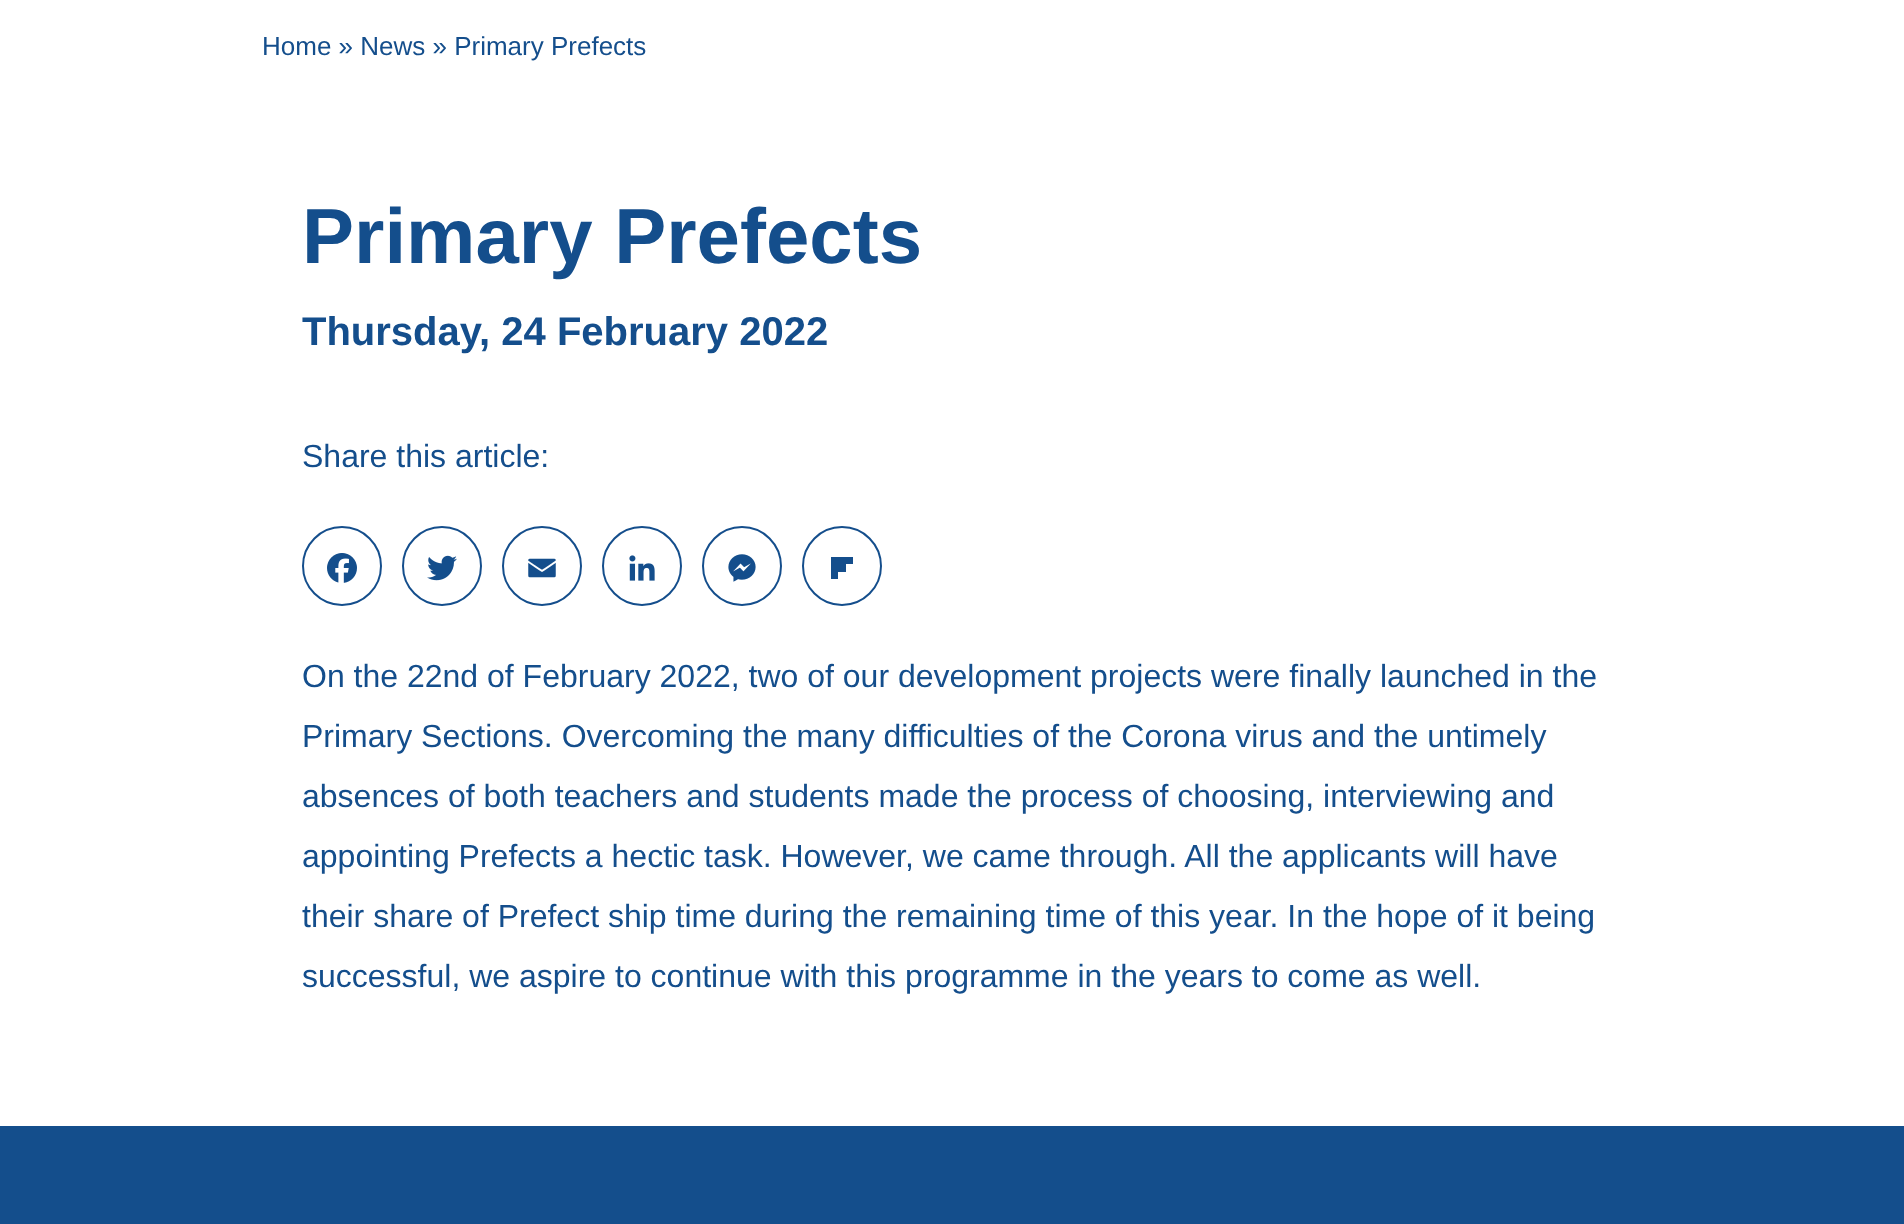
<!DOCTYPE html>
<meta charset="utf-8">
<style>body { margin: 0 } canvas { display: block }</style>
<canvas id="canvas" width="1904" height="1224"></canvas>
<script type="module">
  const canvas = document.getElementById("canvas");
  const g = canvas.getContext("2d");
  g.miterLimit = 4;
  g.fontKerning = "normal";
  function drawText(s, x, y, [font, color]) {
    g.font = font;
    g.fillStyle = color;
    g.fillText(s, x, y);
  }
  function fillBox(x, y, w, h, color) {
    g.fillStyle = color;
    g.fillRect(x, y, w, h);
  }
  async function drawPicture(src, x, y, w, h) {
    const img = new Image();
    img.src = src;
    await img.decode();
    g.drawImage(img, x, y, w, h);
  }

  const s1 = ["26px Liberation Sans", "#144E8C"];
  const s2 = ["bold 78px Liberation Sans", "#144E8C"];
  const s3 = ["bold 40px Liberation Sans", "#144E8C"];
  const s4 = ["32px Liberation Sans", "#144E8C"];

  fillBox(0, 0, 1904, 1224, "#FFFFFF");
  drawText("Home » News » Primary Prefects", 262, 55, s1);
  drawText("Primary Prefects", 302, 263, s2);
  drawText("Thursday, 24 February 2022", 302, 345, s3);
  drawText("Share this article:", 302, 467, s4);
  g.beginPath();
  g.arc(342, 566, 39, 0, Math.PI * 2);
  g.strokeStyle = "#144E8C";
  g.lineWidth = 2;
  g.stroke();
  await drawPicture("pic1.png", 327, 553, 30, 30);
  g.beginPath();
  g.arc(442, 566, 39, 0, Math.PI * 2);
  g.stroke();
  await drawPicture("pic2.png", 427, 555, 30, 26);
  g.beginPath();
  g.arc(542, 566, 39, 0, Math.PI * 2);
  g.stroke();
  await drawPicture("pic3.png", 528, 558, 28, 20);
  g.beginPath();
  g.arc(642, 566, 39, 0, Math.PI * 2);
  g.stroke();
  await drawPicture("pic4.png", 629, 555, 26, 26);
  g.beginPath();
  g.arc(742, 566, 39, 0, Math.PI * 2);
  g.stroke();
  await drawPicture("pic5.png", 728, 554, 28, 28);
  g.beginPath();
  g.arc(842, 566, 39, 0, Math.PI * 2);
  g.stroke();
  fillBox(838, 564, 8, 8, "#144E8C");
  fillBox(831, 557, 22, 7, "#144E8C");
  fillBox(831, 557, 7, 22, "#144E8C");
  drawText("On the 22nd of February 2022, two of our development projects were finally launched in the", 302, 687, s4);
  drawText("Primary Sections. Overcoming the many difficulties of the Corona virus and the untimely", 302, 747, s4);
  drawText("absences of both teachers and students made the process of choosing, interviewing and", 302, 807, s4);
  drawText("appointing Prefects a hectic task. However, we came through. All the applicants will have", 302, 867, s4);
  drawText("their share of Prefect ship time during the remaining time of this year. In the hope of it being", 302, 927, s4);
  drawText("successful, we aspire to continue with this programme in the years to come as well.", 302, 987, s4);
  fillBox(0, 1126, 1904, 98, "#144E8C");
</script>
